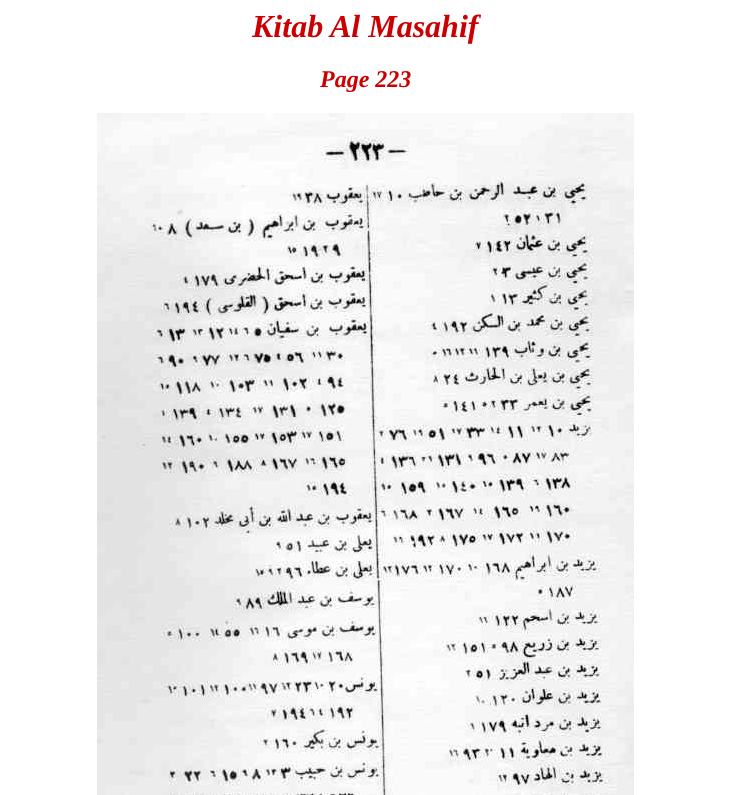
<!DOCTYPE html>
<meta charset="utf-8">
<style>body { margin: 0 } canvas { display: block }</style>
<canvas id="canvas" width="731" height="795"></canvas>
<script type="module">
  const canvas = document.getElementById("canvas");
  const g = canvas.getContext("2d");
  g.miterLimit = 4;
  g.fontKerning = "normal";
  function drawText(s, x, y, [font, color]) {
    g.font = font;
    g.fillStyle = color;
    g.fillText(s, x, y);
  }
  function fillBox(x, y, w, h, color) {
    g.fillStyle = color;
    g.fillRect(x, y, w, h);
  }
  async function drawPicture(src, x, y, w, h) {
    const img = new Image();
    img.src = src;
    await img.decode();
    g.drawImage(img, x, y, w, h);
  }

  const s1 = ["italic bold 32px Liberation Serif", "#CC0000"];
  const s2 = ["italic bold 24px Liberation Serif", "#CC0000"];

  fillBox(0, 0, 731, 795, "#FFFFFF");
  drawText("Kitab Al Masahif", 252, 37, s1);
  drawText("Page 223", 320, 87, s2);
  await drawPicture("pic1.png", 97, 113, 537, 682);
</script>
